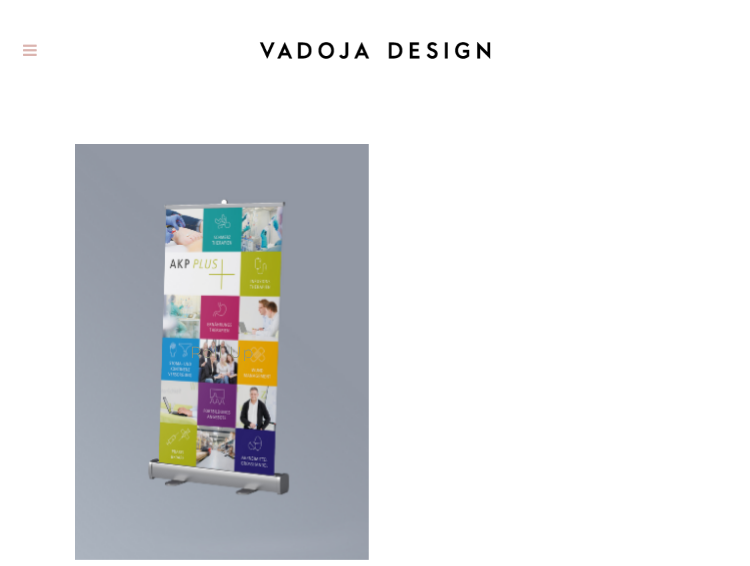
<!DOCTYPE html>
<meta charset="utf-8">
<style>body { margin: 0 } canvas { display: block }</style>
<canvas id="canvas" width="750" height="566"></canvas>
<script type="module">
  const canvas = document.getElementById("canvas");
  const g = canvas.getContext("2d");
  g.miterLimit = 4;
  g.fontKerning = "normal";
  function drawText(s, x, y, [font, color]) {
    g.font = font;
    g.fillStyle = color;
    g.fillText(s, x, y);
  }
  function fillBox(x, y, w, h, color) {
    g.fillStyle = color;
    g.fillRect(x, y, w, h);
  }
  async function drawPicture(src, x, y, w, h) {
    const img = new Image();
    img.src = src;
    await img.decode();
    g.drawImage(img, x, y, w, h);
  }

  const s1 = ["300 16px Montserrat", "#90947A"];

  fillBox(0, 0, 750, 566, "#FFFFFF");
  await drawPicture("pic1.png", 23, 44, 14, 12);
  await drawPicture("pic2.png", 259, 42, 232, 17);
  await drawPicture("pic3.png", 75, 144, 294, 416);
  g.letterSpacing = "1px";
  drawText("Roll Up", 190, 358, s1);
</script>
